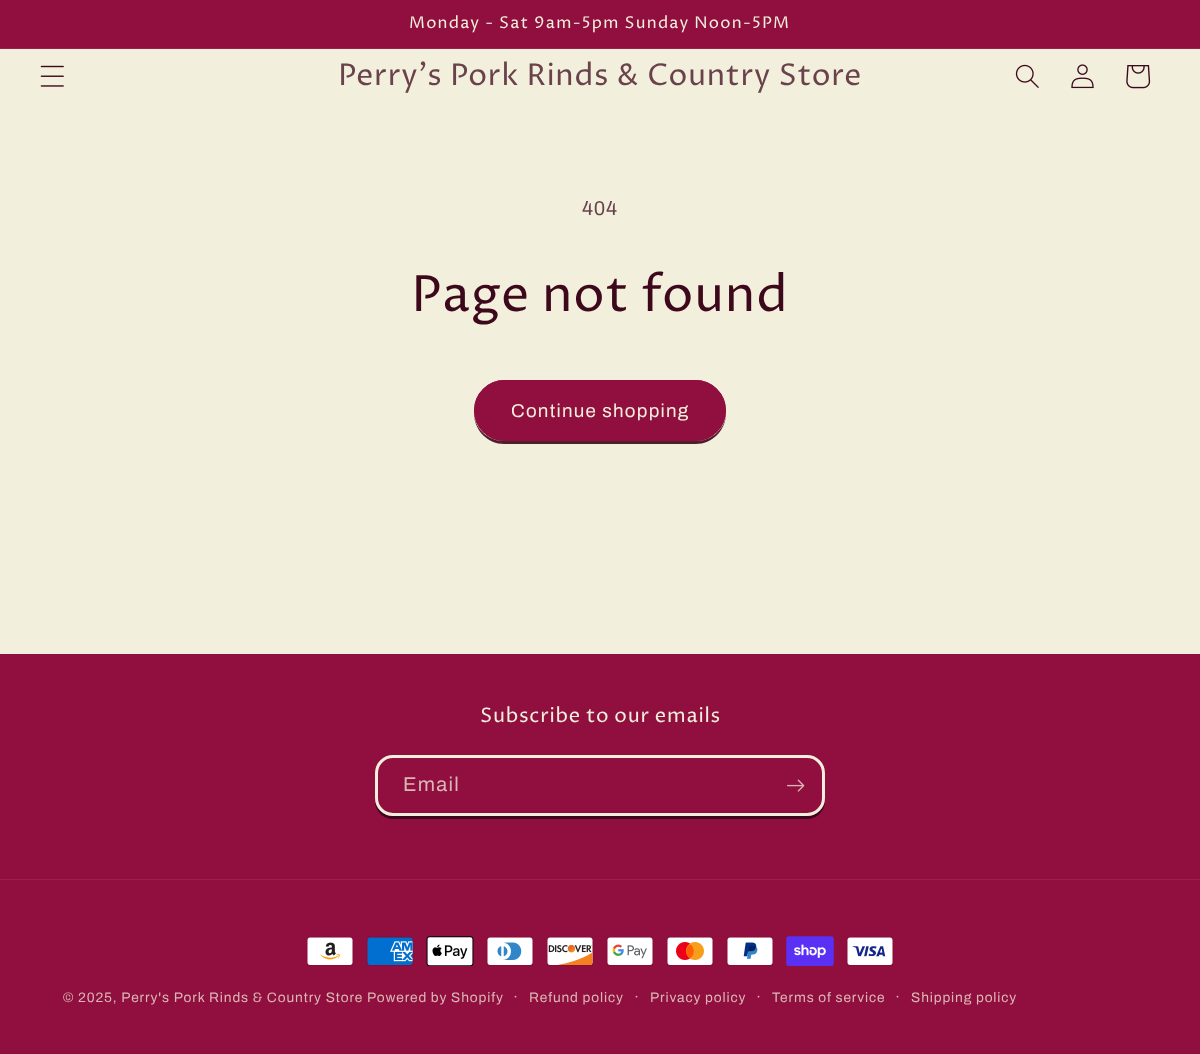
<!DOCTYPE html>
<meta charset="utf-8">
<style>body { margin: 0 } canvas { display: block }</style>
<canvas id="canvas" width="1200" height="1054"></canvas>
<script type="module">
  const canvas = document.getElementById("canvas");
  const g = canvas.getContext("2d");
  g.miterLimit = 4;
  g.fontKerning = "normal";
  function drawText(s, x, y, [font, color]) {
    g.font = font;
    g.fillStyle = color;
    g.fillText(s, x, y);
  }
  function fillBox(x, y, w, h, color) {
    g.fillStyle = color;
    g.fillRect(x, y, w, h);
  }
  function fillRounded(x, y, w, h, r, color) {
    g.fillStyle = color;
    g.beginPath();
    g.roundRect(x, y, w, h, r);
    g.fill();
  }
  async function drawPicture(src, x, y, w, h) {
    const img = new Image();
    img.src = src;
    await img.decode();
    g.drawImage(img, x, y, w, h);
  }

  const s1 = ["16.25px Proza Libre", "#F2EFDD"];
  const s2 = ["30px Proza Libre", "#6A424C"];
  const s3 = ["20px Archivo", "#6A424C"];
  const s4 = ["50px Proza Libre", "#3D081B"];
  const s5 = ["18.75px Archivo", "#F2EFDD"];
  const s6 = ["20px Proza Libre", "#F2EFDD"];
  const s7 = ["20px Archivo", "#DAB7B6"];
  const s8 = ["13.75px Archivo", "#DAB7B6"];
  const s9 = ["15px Archivo", "#DAB7B6"];

  fillBox(0, 0, 1200, 1054, "#F2EFDD");
  fillBox(0, 0, 1200, 48, "#910F3F");
  fillBox(0, 48, 1200, 1, "#99214C");
  g.letterSpacing = "1.25px";
  drawText("Monday - Sat 9am-5pm Sunday Noon-5PM", 409, 28, s1);
  await drawPicture("pic1.png", 40, 65, 24, 22);
  g.letterSpacing = "0.75px";
  drawText("Perry's Pork Rinds & Country Store", 338, 85, s2);
  await drawPicture("pic2.png", 1015, 64, 24, 24);
  await drawPicture("pic3.png", 1071, 64, 23, 25);
  await drawPicture("pic4.png", 1126, 65, 25, 24);
  drawText("404", 582, 215, s3);
  drawText("Page not found", 411, 311, s4);
  g.fillStyle = "#4F1F2E";
  g.beginPath();
  g.moveTo(474, 415);
  g.bezierCurveTo(475, 431, 488, 444, 504, 444);
  g.lineTo(696, 444);
  g.bezierCurveTo(712, 444, 725, 431, 726, 415);
  g.bezierCurveTo(724, 430, 711, 441, 696, 441);
  g.lineTo(504, 441);
  g.bezierCurveTo(489, 441, 476, 430, 474, 415);
  g.closePath();
  g.fill();
  fillRounded(474, 380, 252, 61, 30.5, "#910F3F");
  g.beginPath();
  g.roundRect(475.5, 381.5, 249, 58, 29);
  g.strokeStyle = "#910F3F";
  g.lineWidth = 3;
  g.stroke();
  g.letterSpacing = "1.25px";
  drawText("Continue shopping", 511, 417, s5);
  fillBox(0, 654, 1200, 400, "#910F3F");
  g.letterSpacing = "0.75px";
  drawText("Subscribe to our emails", 480, 722, s6);
  g.fillStyle = "#3D081B";
  g.beginPath();
  g.moveTo(375, 799);
  g.lineTo(375, 801);
  g.bezierCurveTo(375, 811, 383, 819, 393, 819);
  g.lineTo(807, 819);
  g.bezierCurveTo(817, 819, 825, 811, 825, 801);
  g.lineTo(825, 799);
  g.bezierCurveTo(825, 808, 817, 816, 808, 816);
  g.lineTo(392, 816);
  g.bezierCurveTo(383, 816, 375, 808, 375, 799);
  g.closePath();
  g.fill();
  g.beginPath();
  g.roundRect(376.5, 756.5, 447, 58, 16.5);
  g.strokeStyle = "#F2EFDD";
  g.stroke();
  g.letterSpacing = "1.25px";
  drawText("Email", 403, 791, s7);
  await drawPicture("pic5.png", 787, 779, 18, 13);
  fillBox(0, 879, 1200, 1, "#99214C");
  await drawPicture("pic6.png", 306, 936, 48, 30);
  await drawPicture("pic7.png", 366, 936, 48, 30);
  await drawPicture("pic8.png", 426, 936, 48, 30);
  await drawPicture("pic9.png", 486, 936, 48, 30);
  await drawPicture("pic10.png", 546, 936, 48, 30);
  await drawPicture("pic11.png", 606, 936, 48, 30);
  await drawPicture("pic12.png", 666, 936, 48, 30);
  await drawPicture("pic13.png", 726, 936, 48, 30);
  await drawPicture("pic14.png", 786, 936, 48, 30);
  await drawPicture("pic15.png", 846, 936, 48, 30);
  g.letterSpacing = "0.88px";
  drawText("© 2025, Perry's Pork Rinds & Country Store Powered by Shopify", 63, 1002, s8);
  drawText("·", 513, 1002, s9);
  drawText("Refund policy", 529, 1002, s8);
  drawText("·", 634, 1002, s9);
  drawText("Privacy policy", 650, 1002, s8);
  drawText("·", 756, 1002, s9);
  drawText("Terms of service", 772, 1002, s8);
  drawText("·", 895, 1002, s9);
  drawText("Shipping policy", 911, 1002, s8);
</script>
